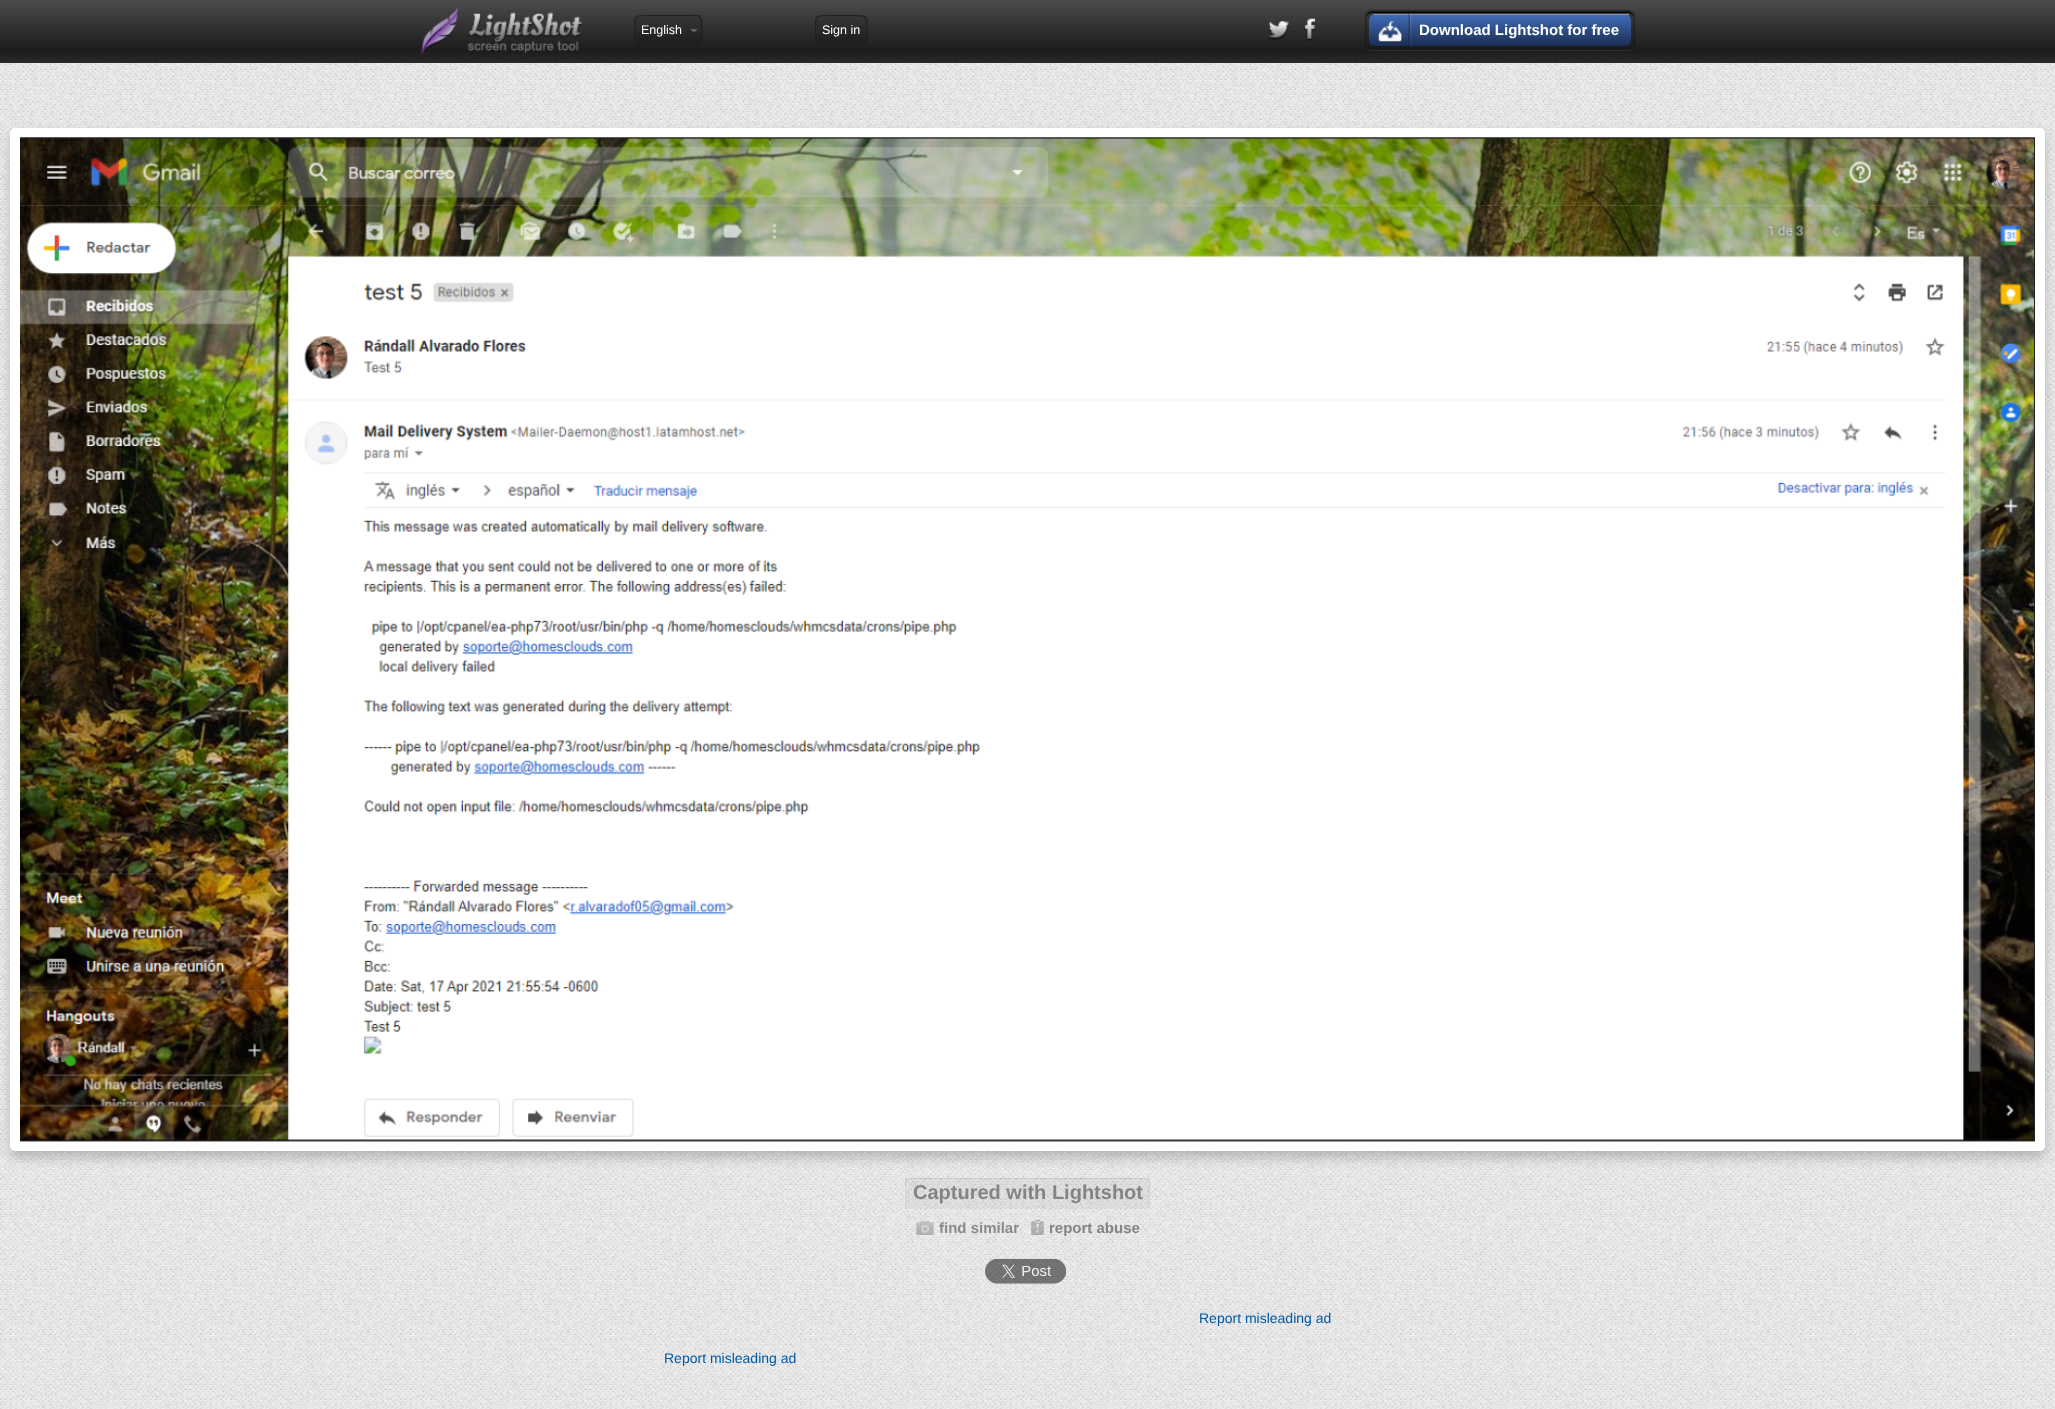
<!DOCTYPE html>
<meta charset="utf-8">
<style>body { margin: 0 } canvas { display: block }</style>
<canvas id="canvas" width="2055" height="1409"></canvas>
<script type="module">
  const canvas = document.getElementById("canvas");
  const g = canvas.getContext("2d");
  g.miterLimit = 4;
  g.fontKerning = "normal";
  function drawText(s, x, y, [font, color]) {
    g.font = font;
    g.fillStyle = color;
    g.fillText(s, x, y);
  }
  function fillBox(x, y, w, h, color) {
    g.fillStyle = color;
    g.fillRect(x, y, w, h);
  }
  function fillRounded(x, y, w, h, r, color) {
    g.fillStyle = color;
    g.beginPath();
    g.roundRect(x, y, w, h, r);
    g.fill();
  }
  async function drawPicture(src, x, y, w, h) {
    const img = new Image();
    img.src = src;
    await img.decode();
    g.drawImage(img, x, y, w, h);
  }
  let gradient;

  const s1 = ["12.5px Liberation Sans", "#FFFFFF"];
  const s2 = ["bold 15px Liberation Sans", "#FFFFFF"];
  const s3 = ["bold 20px Liberation Sans", "#848484"];
  const s4 = ["bold 15px Liberation Sans", "#8A8A8A"];
  const s5 = ["bold 15px Liberation Sans", "#848484"];
  const s6 = ["14px Liberation Sans", "#0059A5"];

  fillBox(0, 0, 2055, 1409, "#FFFFFF");
  await drawPicture("pic1.png", 0, 63, 2055, 1346);
  gradient = g.createLinearGradient(1028, 0, 1028, 63);
  gradient.addColorStop(0, "#4B4B4B");
  gradient.addColorStop(0.8, "#1C1C1C");
  gradient.addColorStop(1, "#2A2A2A");
  g.fillStyle = gradient;
  g.fillRect(0, 0, 2055, 63);
  await drawPicture("pic2.png", 421, 6, 162, 49);
  fillRounded(634, 15, 69, 29, 6, "rgba(0, 0, 0, 0.1)");
  g.beginPath();
  g.moveTo(636, 41.5);
  g.bezierCurveTo(633, 38.5, 634.5, 33, 634.5, 29.5);
  g.bezierCurveTo(634.5, 14.5, 634, 15.5, 649.5, 15.5);
  g.lineTo(687, 15.5);
  g.bezierCurveTo(699.5, 15.5, 702, 14, 702, 26.5);
  g.bezierCurveTo(702, 30.5, 703, 38.5, 700, 41.5);
  g.strokeStyle = "#212121";
  g.lineWidth = 1.2;
  g.stroke();
  drawText("English", 641, 34, s1);
  g.fillStyle = "#666666";
  g.beginPath();
  g.moveTo(690, 29);
  g.lineTo(697.5, 29);
  g.lineTo(694, 32.5);
  g.closePath();
  g.fill();
  fillRounded(815, 15, 53, 29, 6, "rgba(0, 0, 0, 0.1)");
  g.beginPath();
  g.moveTo(817.5, 41.5);
  g.bezierCurveTo(814.5, 38.5, 815.5, 33, 815.5, 29.5);
  g.bezierCurveTo(815.5, 16.5, 814.5, 15.5, 828, 15.5);
  g.lineTo(854.5, 15.5);
  g.bezierCurveTo(868, 15.5, 867, 16.5, 867, 29.5);
  g.bezierCurveTo(867, 33, 868, 38.5, 865, 41.5);
  g.stroke();
  drawText("Sign in", 822, 34, s1);
  await drawPicture("pic3.png", 1268, 21, 21, 19);
  await drawPicture("pic4.png", 1304, 18, 12, 23);
  g.save();
  g.beginPath();
  g.moveTo(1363, 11);
  g.lineTo(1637, 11);
  g.lineTo(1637, 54);
  g.lineTo(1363, 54);
  g.closePath();
  g.moveTo(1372, 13);
  g.lineTo(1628, 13);
  g.bezierCurveTo(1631.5, 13, 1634, 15.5, 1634, 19);
  g.lineTo(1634, 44);
  g.bezierCurveTo(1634, 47.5, 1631.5, 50, 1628, 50);
  g.lineTo(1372, 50);
  g.bezierCurveTo(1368.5, 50, 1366, 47.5, 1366, 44);
  g.lineTo(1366, 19);
  g.bezierCurveTo(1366, 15.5, 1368.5, 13, 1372, 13);
  g.closePath();
  g.clip("evenodd");
  g.fillStyle = "rgba(255, 255, 255, 0.1)";
  g.filter = "blur(0.5px)";
  g.beginPath();
  g.roundRect(1366, 14, 268, 37, 6);
  g.fill();
  g.filter = "none";
  g.restore();
  g.save();
  g.beginPath();
  g.moveTo(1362, 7);
  g.lineTo(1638, 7);
  g.lineTo(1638, 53);
  g.lineTo(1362, 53);
  g.closePath();
  g.moveTo(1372, 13);
  g.lineTo(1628, 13);
  g.bezierCurveTo(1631.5, 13, 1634, 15.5, 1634, 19);
  g.lineTo(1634, 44);
  g.bezierCurveTo(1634, 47.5, 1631.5, 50, 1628, 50);
  g.lineTo(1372, 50);
  g.bezierCurveTo(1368.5, 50, 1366, 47.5, 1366, 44);
  g.lineTo(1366, 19);
  g.bezierCurveTo(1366, 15.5, 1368.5, 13, 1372, 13);
  g.closePath();
  g.clip("evenodd");
  g.fillStyle = "rgba(0, 0, 0, 0.99)";
  g.filter = "blur(1px)";
  g.beginPath();
  g.roundRect(1366, 11, 268, 38, 6);
  g.fill();
  g.filter = "none";
  g.restore();
  fillRounded(1366, 13, 268, 37, 6, "rgba(0, 0, 0, 0.11)");
  g.save();
  g.beginPath();
  g.roundRect(1369, 14, 262, 32, 6);
  g.clip();
  gradient = g.createLinearGradient(1500, -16, 1500, 15);
  gradient.addColorStop(0, "#406CB6");
  gradient.addColorStop(1, "#1B2D54");
  g.fillStyle = gradient;
  g.fillRect(1369, 14, 262, 1);
  gradient = g.createLinearGradient(1500, 15, 1500, 46);
  gradient.addColorStop(0, "rgba(64, 109, 184, 0.98)");
  gradient.addColorStop(1, "rgba(26, 45, 84, 0.98)");
  g.fillStyle = gradient;
  g.beginPath();
  g.roundRect(1369, 15, 262, 31, [0, 0, 6, 6]);
  g.fill();
  g.restore();
  fillBox(1373, 14, 256, 1, "rgba(251, 251, 251, 0.5)");
  await drawPicture("pic5.png", 1378, 20, 25, 23);
  await drawPicture("pic6.png", 1408, 13, 4, 34);
  drawText("Download Lightshot for free", 1419, 35, s2);
  g.fillStyle = "rgba(0, 0, 0, 0.2)";
  g.filter = "blur(6px)";
  g.beginPath();
  g.roundRect(10, 134, 2035, 1024, 5);
  g.fill();
  g.filter = "none";
  fillRounded(10, 128, 2035, 1023, 5, "#FFFFFF");
  await drawPicture("pic7.png", 20, 137, 2015, 1005);
  await drawPicture("pic8.png", 20, 137, 2015, 1005);
  g.save();
  g.beginPath();
  g.moveTo(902, 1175);
  g.lineTo(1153, 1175);
  g.lineTo(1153, 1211);
  g.lineTo(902, 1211);
  g.closePath();
  g.moveTo(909, 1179);
  g.lineTo(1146, 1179);
  g.bezierCurveTo(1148, 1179, 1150, 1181, 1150, 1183);
  g.lineTo(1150, 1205);
  g.bezierCurveTo(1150, 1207, 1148, 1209, 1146, 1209);
  g.lineTo(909, 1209);
  g.bezierCurveTo(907, 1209, 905, 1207, 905, 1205);
  g.lineTo(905, 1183);
  g.bezierCurveTo(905, 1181, 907, 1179, 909, 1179);
  g.closePath();
  g.clip("evenodd");
  g.fillStyle = "rgba(0, 0, 0, 0.12)";
  g.filter = "blur(0.5px)";
  g.beginPath();
  g.roundRect(905, 1178, 245, 30, 4);
  g.fill();
  g.filter = "none";
  g.restore();
  fillBox(905, 1179, 245, 30, "rgba(0, 0, 0, 0.04)");
  fillBox(1149, 1181, 1, 27, "rgba(0, 0, 0, 0.04)");
  fillBox(905, 1181, 1, 27, "rgba(0, 0, 0, 0.04)");
  drawText("Captured with Lightshot", 913, 1199, s3);
  await drawPicture("pic9.png", 916, 1221, 18, 14);
  drawText("find similar", 939, 1233, s4);
  await drawPicture("pic10.png", 1031, 1220, 13, 15);
  drawText("report abuse", 1049, 1233, s5);
  await drawPicture("pic11.png", 985, 1258, 82, 26);
  drawText("Report misleading ad", 1199, 1323, s6);
  drawText("Report misleading ad", 664, 1363, s6);
</script>
